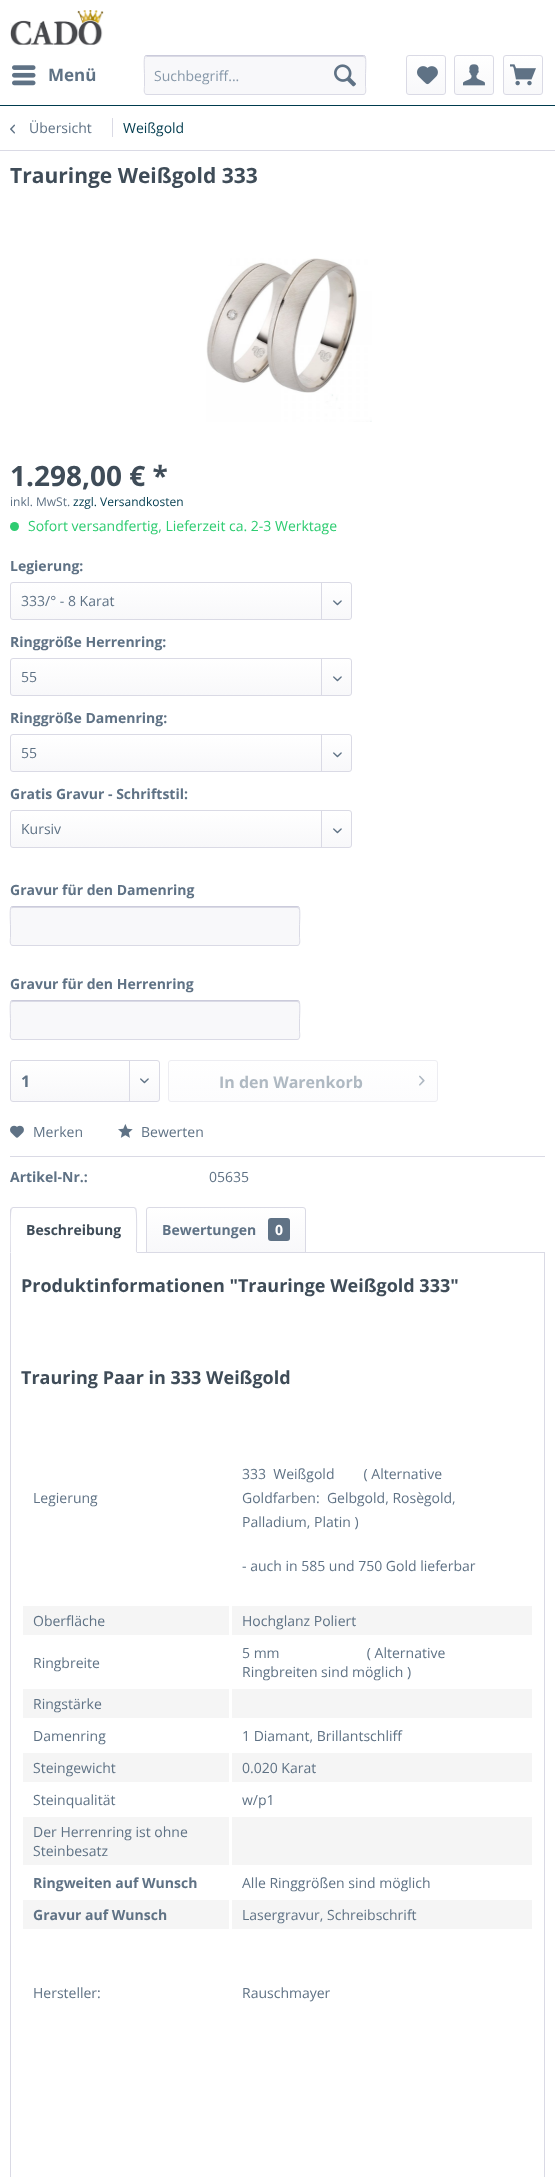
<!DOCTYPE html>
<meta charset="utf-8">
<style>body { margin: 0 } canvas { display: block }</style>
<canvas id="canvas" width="555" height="2177"></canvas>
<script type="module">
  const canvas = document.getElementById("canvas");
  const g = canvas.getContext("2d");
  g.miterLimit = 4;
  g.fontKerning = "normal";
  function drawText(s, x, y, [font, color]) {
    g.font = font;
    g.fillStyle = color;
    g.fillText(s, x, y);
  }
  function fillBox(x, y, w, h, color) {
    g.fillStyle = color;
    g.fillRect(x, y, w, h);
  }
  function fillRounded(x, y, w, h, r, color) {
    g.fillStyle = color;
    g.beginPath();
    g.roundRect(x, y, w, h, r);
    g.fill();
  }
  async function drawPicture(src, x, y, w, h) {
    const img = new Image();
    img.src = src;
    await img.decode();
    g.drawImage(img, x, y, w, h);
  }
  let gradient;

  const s1 = ["bold 17px Open Sans", "#5F7285"];
  const s2 = ["14px Open Sans", "#8798A9"];
  const s3 = ["14px Open Sans", "#5F7285"];
  const s4 = ["14px Open Sans", "#003B4E"];
  const s5 = ["bold 21px Open Sans", "#3F4C58"];
  const s6 = ["bold 28px Open Sans", "#3F4C58"];
  const s7 = ["12px Open Sans", "#5F7285"];
  const s8 = ["12px Open Sans", "#003B4E"];
  const s9 = ["14px Open Sans", "#2ECC71"];
  const s10 = ["bold 14px Open Sans", "#5F7285"];
  const s11 = ["bold 16px Open Sans", "#5F7285"];
  const s12 = ["bold 16px Open Sans", "#AFB9C2"];
  const s13 = ["bold 14px Open Sans", "#3F4C58"];
  const s14 = ["bold 14px Open Sans", "#FFFFFF"];
  const s15 = ["bold 18px Open Sans", "#3F4C58"];

  fillBox(0, 0, 555, 2177, "#FFFFFF");
  fillBox(0, 105, 555, 1, "#003B4E");
  await drawPicture("pic1.png", 10, 10, 94, 35);
  await drawPicture("pic2.png", 12, 65, 24, 21);
  drawText("Menü", 48, 81, s1);
  fillRounded(144, 55, 222, 40, 3, "#F8F8FA");
  g.fillStyle = "#DADAE5";
  g.beginPath();
  g.moveTo(147, 57);
  g.lineTo(363, 57);
  g.bezierCurveTo(364, 57, 365, 58, 365, 59);
  g.bezierCurveTo(365, 58, 365, 56, 363, 56);
  g.lineTo(147, 56);
  g.lineTo(146, 57);
  g.lineTo(145, 59);
  g.bezierCurveTo(145, 58, 146, 57, 147, 57);
  g.closePath();
  g.fill();
  g.beginPath();
  g.moveTo(145, 56);
  g.lineTo(147, 55.5);
  g.lineTo(363.5, 55.5);
  g.lineTo(365, 56);
  g.strokeStyle = "#CBCBDB";
  g.stroke();
  g.beginPath();
  g.moveTo(365, 56);
  g.bezierCurveTo(366.5, 58, 365.5, 72, 365.5, 75);
  g.lineTo(365.5, 86.5);
  g.bezierCurveTo(365.5, 88, 367, 94.5, 363, 94.5);
  g.lineTo(147, 94.5);
  g.bezierCurveTo(143, 94.5, 144.5, 88, 144.5, 86.5);
  g.lineTo(144.5, 75);
  g.bezierCurveTo(144.5, 72, 143.5, 58, 145, 56);
  g.strokeStyle = "#DADAE5";
  g.stroke();
  drawText("Suchbegriff...", 154, 81, s2);
  await drawPicture("pic3.png", 334, 64, 22, 23);
  gradient = g.createLinearGradient(426, 56, 426, 94);
  gradient.addColorStop(0, "#FFFFFF");
  gradient.addColorStop(1, "#F8F8FA");
  g.fillStyle = gradient;
  g.beginPath();
  g.roundRect(407, 56, 38, 38, 2);
  g.fill();
  g.beginPath();
  g.roundRect(406.5, 55.5, 39, 39, 2.5);
  g.stroke();
  await drawPicture("pic4.png", 417, 66, 21, 19);
  gradient = g.createLinearGradient(474, 56, 474, 94);
  gradient.addColorStop(0, "#FFFFFF");
  gradient.addColorStop(1, "#F8F8FA");
  g.fillStyle = gradient;
  g.beginPath();
  g.roundRect(455, 56, 38, 38, 2);
  g.fill();
  g.beginPath();
  g.roundRect(454.5, 55.5, 39, 39, 2.5);
  g.stroke();
  await drawPicture("pic5.png", 463, 64, 22, 22);
  gradient = g.createLinearGradient(523, 56, 523, 94);
  gradient.addColorStop(0, "#FFFFFF");
  gradient.addColorStop(1, "#F8F8FA");
  g.fillStyle = gradient;
  g.beginPath();
  g.roundRect(504, 56, 38, 38, 2);
  g.fill();
  g.beginPath();
  g.roundRect(503.5, 55.5, 39, 39, 2.5);
  g.stroke();
  await drawPicture("pic6.png", 510, 64, 26, 22);
  fillBox(0, 150, 555, 1, "#DADAE5");
  await drawPicture("pic7.png", 10, 124, 5, 10);
  drawText("Übersicht", 29, 133, s3);
  fillBox(112, 118, 1, 19, "#DADAE5");
  drawText("Weißgold", 123, 133, s4);
  drawText("Trauringe Weißgold 333", 10, 183, s5);
  await drawPicture("pic8.png", 206, 258, 166, 164);
  drawText("1.298,00 € *", 10, 486, s6);
  drawText("inkl. MwSt.", 10, 506, s7);
  drawText("zzgl. Versandkosten", 73, 506, s8);
  g.fillStyle = "#2ECC71";
  g.beginPath();
  g.arc(14.5, 526.5, 4.5, 0, Math.PI * 2);
  g.fill();
  drawText("Sofort versandfertig, Lieferzeit ca. 2-3 Werktage", 28, 531, s9);
  drawText("Legierung:", 10, 571, s10);
  gradient = g.createLinearGradient(181, 583, 181, 619);
  gradient.addColorStop(0, "#FFFFFF");
  gradient.addColorStop(1, "#F8F8FA");
  g.fillStyle = gradient;
  g.beginPath();
  g.roundRect(11, 583, 340, 36, 2);
  g.fill();
  g.beginPath();
  g.roundRect(10.5, 582.5, 341, 37, 2.5);
  g.stroke();
  drawText("333/° - 8 Karat", 21, 606, s3);
  fillBox(321, 583, 1, 36, "#DADAE5");
  await drawPicture("pic9.png", 333, 600, 9, 6);
  drawText("Ringgröße Herrenring:", 10, 647, s10);
  gradient = g.createLinearGradient(181, 659, 181, 695);
  gradient.addColorStop(0, "#FFFFFF");
  gradient.addColorStop(1, "#F8F8FA");
  g.fillStyle = gradient;
  g.beginPath();
  g.roundRect(11, 659, 340, 36, 2);
  g.fill();
  g.beginPath();
  g.roundRect(10.5, 658.5, 341, 37, 2.5);
  g.stroke();
  drawText("55", 21, 682, s3);
  fillBox(321, 659, 1, 36, "#DADAE5");
  await drawPicture("pic9.png", 333, 676, 9, 6);
  drawText("Ringgröße Damenring:", 10, 723, s10);
  gradient = g.createLinearGradient(181, 735, 181, 771);
  gradient.addColorStop(0, "#FFFFFF");
  gradient.addColorStop(1, "#F8F8FA");
  g.fillStyle = gradient;
  g.beginPath();
  g.roundRect(11, 735, 340, 36, 2);
  g.fill();
  g.beginPath();
  g.roundRect(10.5, 734.5, 341, 37, 2.5);
  g.stroke();
  drawText("55", 21, 758, s3);
  fillBox(321, 735, 1, 36, "#DADAE5");
  await drawPicture("pic9.png", 333, 752, 9, 6);
  drawText("Gratis Gravur - Schriftstil:", 10, 799, s10);
  gradient = g.createLinearGradient(181, 811, 181, 847);
  gradient.addColorStop(0, "#FFFFFF");
  gradient.addColorStop(1, "#F8F8FA");
  g.fillStyle = gradient;
  g.beginPath();
  g.roundRect(11, 811, 340, 36, 2);
  g.fill();
  g.beginPath();
  g.roundRect(10.5, 810.5, 341, 37, 2.5);
  g.stroke();
  drawText("Kursiv", 21, 834, s3);
  fillBox(321, 811, 1, 36, "#DADAE5");
  await drawPicture("pic9.png", 333, 828, 9, 6);
  drawText("Gravur für den Damenring", 10, 895, s10);
  fillRounded(10, 906, 290, 40, 3, "#F8F8FA");
  g.fillStyle = "#DADAE5";
  g.beginPath();
  g.moveTo(13, 908);
  g.lineTo(297, 908);
  g.bezierCurveTo(298, 908, 299, 909, 299, 910);
  g.bezierCurveTo(299, 909, 299, 907, 297, 907);
  g.lineTo(12, 907);
  g.lineTo(11, 910);
  g.bezierCurveTo(11, 909, 12, 908, 13, 908);
  g.closePath();
  g.fill();
  g.beginPath();
  g.moveTo(11, 907);
  g.lineTo(13, 906.5);
  g.lineTo(297, 906.5);
  g.lineTo(299, 907);
  g.strokeStyle = "#CBCBDB";
  g.stroke();
  g.beginPath();
  g.moveTo(299, 907);
  g.bezierCurveTo(300.5, 909, 299.5, 923, 299.5, 926);
  g.lineTo(299.5, 937.5);
  g.bezierCurveTo(299.5, 939, 301, 945.5, 297, 945.5);
  g.lineTo(13, 945.5);
  g.bezierCurveTo(9, 945.5, 10.5, 939, 10.5, 937.5);
  g.lineTo(10.5, 926);
  g.bezierCurveTo(10.5, 923, 9.5, 909, 11, 907);
  g.strokeStyle = "#DADAE5";
  g.stroke();
  drawText("Gravur für den Herrenring", 10, 989, s10);
  fillRounded(10, 1000, 290, 40, 3, "#F8F8FA");
  g.fillStyle = "#DADAE5";
  g.beginPath();
  g.moveTo(13, 1002);
  g.lineTo(297, 1002);
  g.bezierCurveTo(298, 1002, 299, 1003, 299, 1004);
  g.bezierCurveTo(299, 1003, 299, 1001, 297, 1001);
  g.lineTo(12, 1001);
  g.lineTo(11, 1004);
  g.bezierCurveTo(11, 1003, 12, 1002, 13, 1002);
  g.closePath();
  g.fill();
  g.beginPath();
  g.moveTo(11, 1001);
  g.lineTo(13, 1000.5);
  g.lineTo(297, 1000.5);
  g.lineTo(299, 1001);
  g.strokeStyle = "#CBCBDB";
  g.stroke();
  g.beginPath();
  g.moveTo(299, 1001);
  g.bezierCurveTo(300.5, 1003, 299.5, 1017, 299.5, 1020);
  g.lineTo(299.5, 1031.5);
  g.bezierCurveTo(299.5, 1033, 301, 1039.5, 297, 1039.5);
  g.lineTo(13, 1039.5);
  g.bezierCurveTo(9, 1039.5, 10.5, 1033, 10.5, 1031.5);
  g.lineTo(10.5, 1020);
  g.bezierCurveTo(10.5, 1017, 9.5, 1003, 11, 1001);
  g.strokeStyle = "#DADAE5";
  g.stroke();
  gradient = g.createLinearGradient(85, 1061, 85, 1101);
  gradient.addColorStop(0, "#FFFFFF");
  gradient.addColorStop(1, "#F8F8FA");
  g.fillStyle = gradient;
  g.beginPath();
  g.roundRect(11, 1061, 148, 40, 2);
  g.fill();
  g.beginPath();
  g.roundRect(10.5, 1060.5, 149, 41, 2.5);
  g.stroke();
  drawText("1", 21, 1087, s11);
  fillBox(129, 1061, 1, 40, "#DADAE5");
  await drawPicture("pic10.png", 140, 1078, 9, 6);
  gradient = g.createLinearGradient(303, 1061, 303, 1101);
  gradient.addColorStop(0, "#FFFFFF");
  gradient.addColorStop(1, "#FCFCFD");
  g.fillStyle = gradient;
  g.beginPath();
  g.roundRect(169, 1061, 268, 40, 2);
  g.fill();
  g.beginPath();
  g.roundRect(168.5, 1060.5, 269, 41, 2.5);
  g.strokeStyle = "#EDEDF2";
  g.stroke();
  drawText("In den Warenkorb", 219, 1088, s12);
  await drawPicture("pic11.png", 419, 1075, 6, 11);
  fillBox(10, 1156, 535, 1, "#DADAE5");
  await drawPicture("pic12.png", 10, 1125, 14, 13);
  drawText("Merken", 33, 1137, s3);
  await drawPicture("pic13.png", 118, 1124, 15, 14);
  drawText("Bewerten", 141, 1137, s3);
  drawText("Artikel-Nr.:", 10, 1182, s10);
  drawText("05635", 209, 1182, s3);
  g.strokeStyle = "#DADAE5";
  g.strokeRect(10.5, 1252.5, 534, 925);
  g.fillStyle = "#FFFFFF";
  g.beginPath();
  g.roundRect(10, 1207, 127, 46, [3, 3, 0, 0]);
  g.fill();
  g.fillStyle = "#DADAE5";
  g.beginPath();
  g.moveTo(13, 1207);
  g.lineTo(11, 1208);
  g.lineTo(12, 1209);
  g.lineTo(13, 1208);
  g.lineTo(134, 1208);
  g.lineTo(135, 1209);
  g.lineTo(136, 1208);
  g.lineTo(134, 1207);
  g.closePath();
  g.fill();
  g.beginPath();
  g.moveTo(137, 1253);
  g.bezierCurveTo(137, 1248, 138, 1210, 136, 1208);
  g.lineTo(135, 1209);
  g.bezierCurveTo(137, 1210, 136, 1247, 136, 1252);
  g.closePath();
  g.fill();
  g.fillStyle = "#FFFFFF";
  g.beginPath();
  g.moveTo(137, 1253);
  g.lineTo(136, 1252);
  g.lineTo(11, 1252);
  g.lineTo(10, 1253);
  g.closePath();
  g.fill();
  g.fillStyle = "#DADAE5";
  g.beginPath();
  g.moveTo(10, 1253);
  g.lineTo(11, 1252);
  g.bezierCurveTo(11, 1247, 10, 1210, 12, 1209);
  g.lineTo(11, 1208);
  g.lineTo(10, 1210);
  g.closePath();
  g.fill();
  drawText("Beschreibung", 26, 1235, s13);
  gradient = g.createLinearGradient(226, 1208, 226, 1252);
  gradient.addColorStop(0, "#FFFFFF");
  gradient.addColorStop(1, "#F8F8FA");
  g.fillStyle = gradient;
  g.beginPath();
  g.roundRect(147, 1208, 158, 44, [2, 2, 0, 0]);
  g.fill();
  g.beginPath();
  g.roundRect(146.5, 1207.5, 159, 45, [2.5, 2.5, 0, 0]);
  g.stroke();
  drawText("Bewertungen", 162, 1235, s10);
  fillRounded(268, 1218, 22, 23, 3, "#5F7285");
  drawText("0", 275, 1235, s14);
  drawText("Produktinformationen \"Trauringe Weißgold 333\"", 21, 1292, s15);
  drawText("Trauring Paar in 333 Weißgold", 21, 1384, s15);
  drawText("Legierung", 33, 1503, s3);
  drawText("333  Weißgold        ( Alternative", 242, 1479, s3);
  drawText("Goldfarben:  Gelbgold, Rosègold,", 242, 1503, s3);
  drawText("Palladium, Platin )", 242, 1527, s3);
  drawText("- auch in 585 und 750 Gold lieferbar", 242, 1571, s3);
  fillBox(23, 1606, 206, 29, "#F5F5F5");
  drawText("Oberfläche", 33, 1626, s3);
  fillBox(232, 1606, 300, 29, "#F5F5F5");
  drawText("Hochglanz Poliert", 242, 1626, s3);
  drawText("Ringbreite", 33, 1668, s3);
  drawText("5 mm                        ( Alternative", 242, 1658, s3);
  drawText("Ringbreiten sind möglich )", 242, 1677, s3);
  fillBox(23, 1689, 206, 29, "#F5F5F5");
  drawText("Ringstärke", 33, 1709, s3);
  fillBox(232, 1689, 300, 29, "#F5F5F5");
  drawText("Damenring", 33, 1741, s3);
  drawText("1 Diamant, Brillantschliff", 242, 1741, s3);
  fillBox(23, 1753, 206, 29, "#F5F5F5");
  drawText("Steingewicht", 33, 1773, s3);
  fillBox(232, 1753, 300, 29, "#F5F5F5");
  drawText("0.020 Karat", 242, 1773, s3);
  drawText("Steinqualität", 33, 1805, s3);
  drawText("w/p1", 242, 1805, s3);
  fillBox(23, 1817, 206, 48, "#F5F5F5");
  drawText("Der Herrenring ist ohne", 33, 1837, s3);
  drawText("Steinbesatz", 33, 1856, s3);
  fillBox(232, 1817, 300, 48, "#F5F5F5");
  drawText("Ringweiten auf Wunsch", 33, 1888, s10);
  drawText("Alle Ringgrößen sind möglich", 242, 1888, s3);
  fillBox(23, 1900, 206, 29, "#F5F5F5");
  drawText("Gravur auf Wunsch", 33, 1920, s10);
  fillBox(232, 1900, 300, 29, "#F5F5F5");
  drawText("Lasergravur, Schreibschrift", 242, 1920, s3);
  drawText("Hersteller:", 33, 1998, s3);
  drawText("Rauschmayer", 242, 1998, s3);
</script>
